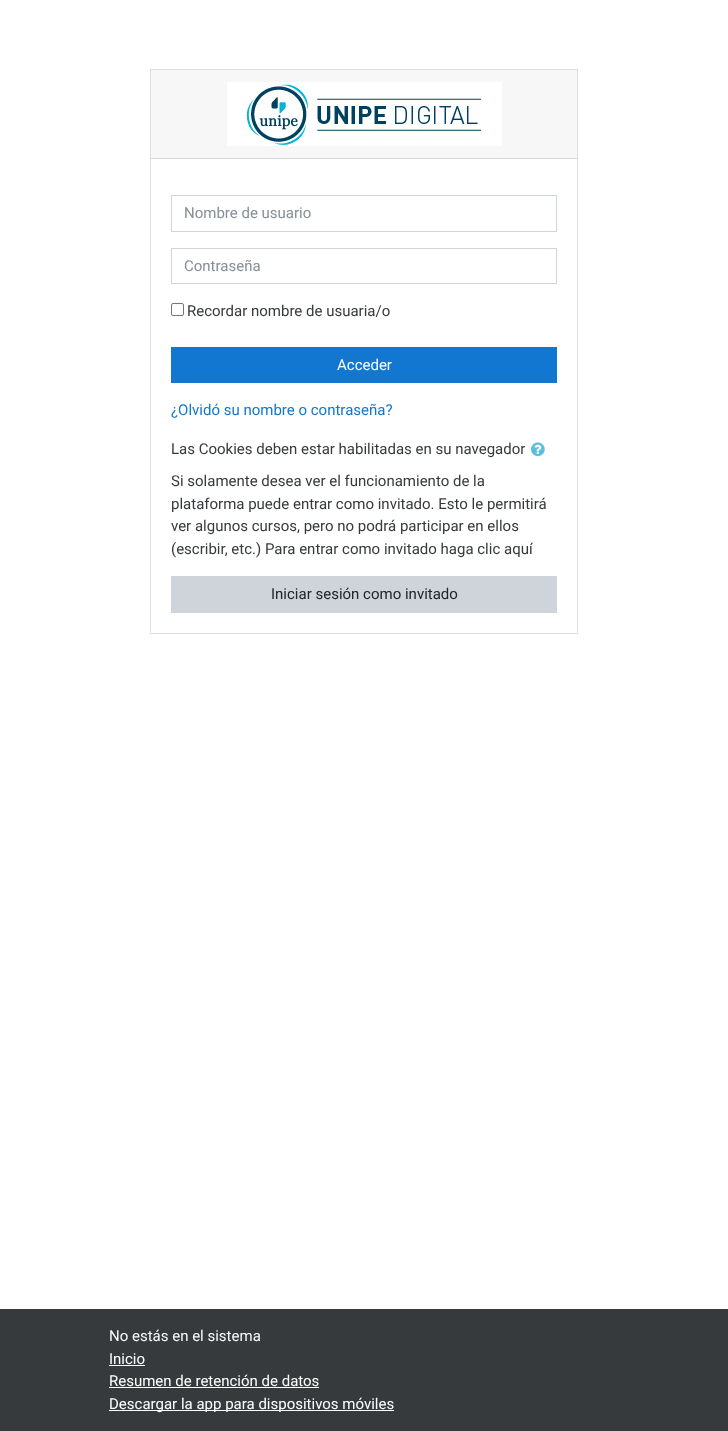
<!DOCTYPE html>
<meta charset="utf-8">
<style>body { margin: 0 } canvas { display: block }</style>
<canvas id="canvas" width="728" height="1431"></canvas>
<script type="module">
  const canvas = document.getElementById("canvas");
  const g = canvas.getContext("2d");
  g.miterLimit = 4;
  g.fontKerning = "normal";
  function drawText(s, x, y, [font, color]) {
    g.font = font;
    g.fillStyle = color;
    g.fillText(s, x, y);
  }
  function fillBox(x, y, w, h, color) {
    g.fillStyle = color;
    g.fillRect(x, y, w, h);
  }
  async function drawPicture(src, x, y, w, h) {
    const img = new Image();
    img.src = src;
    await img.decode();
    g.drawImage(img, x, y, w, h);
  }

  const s1 = ["15px Roboto", "#868E96"];
  const s2 = ["15px Roboto", "#373A3C"];
  const s3 = ["15px Roboto", "#FFFFFF"];
  const s4 = ["15px Roboto", "#1177D1"];
  const s5 = ["15px Roboto", "#212529"];
  const s6 = ["15px Roboto", "#F8F9FA"];

  fillBox(0, 0, 728, 1431, "#FFFFFF");
  g.strokeStyle = "#DFDFDF";
  g.strokeRect(150.5, 69.5, 427, 564);
  fillBox(151, 70, 426, 88, "#F7F7F7");
  fillBox(151, 158, 426, 1, "#D8D8D8");
  await drawPicture("pic1.png", 227, 82, 275, 64);
  g.strokeStyle = "#CED4DA";
  g.strokeRect(171.5, 195.5, 385, 36);
  drawText("Nombre de usuario", 184, 218, s1);
  g.strokeRect(171.5, 248.5, 385, 35);
  drawText("Contraseña", 184, 271, s1);
  g.beginPath();
  g.roundRect(171.5, 303.5, 12, 12, 1.5);
  g.strokeStyle = "#767676";
  g.stroke();
  drawText("Recordar nombre de usuaria/o", 187, 316, s2);
  fillBox(171, 347, 386, 36, "#1177D1");
  drawText("Acceder", 337, 370, s3);
  drawText("¿Olvidó su nombre o contraseña?", 171, 415, s4);
  drawText("Las Cookies deben estar habilitadas en su navegador", 171, 454, s2);
  await drawPicture("pic2.png", 531, 442, 14, 15);
  drawText("Si solamente desea ver el funcionamiento de la", 171, 486, s2);
  drawText("plataforma puede entrar como invitado. Esto le permitirá", 171, 509, s2);
  drawText("ver algunos cursos, pero no podrá participar en ellos", 171, 531, s2);
  drawText("(escribir, etc.) Para entrar como invitado haga clic aquí", 171, 554, s2);
  fillBox(171, 576, 386, 37, "#CED4DA");
  drawText("Iniciar sesión como invitado", 271, 599, s5);
  fillBox(0, 1309, 728, 122, "#373A3C");
  drawText("No estás en el sistema", 109, 1341, s6);
  drawText("Inicio", 109, 1364, s3);
  fillBox(109, 1365, 36, 1, "#FFFFFF");
  drawText("Resumen de retención de datos", 109, 1386, s3);
  fillBox(109, 1387, 210, 1, "#FFFFFF");
  fillBox(109, 1410, 285, 1, "#FFFFFF");
  drawText("Descargar la app para dispositivos móviles", 109, 1409, s3);
</script>
